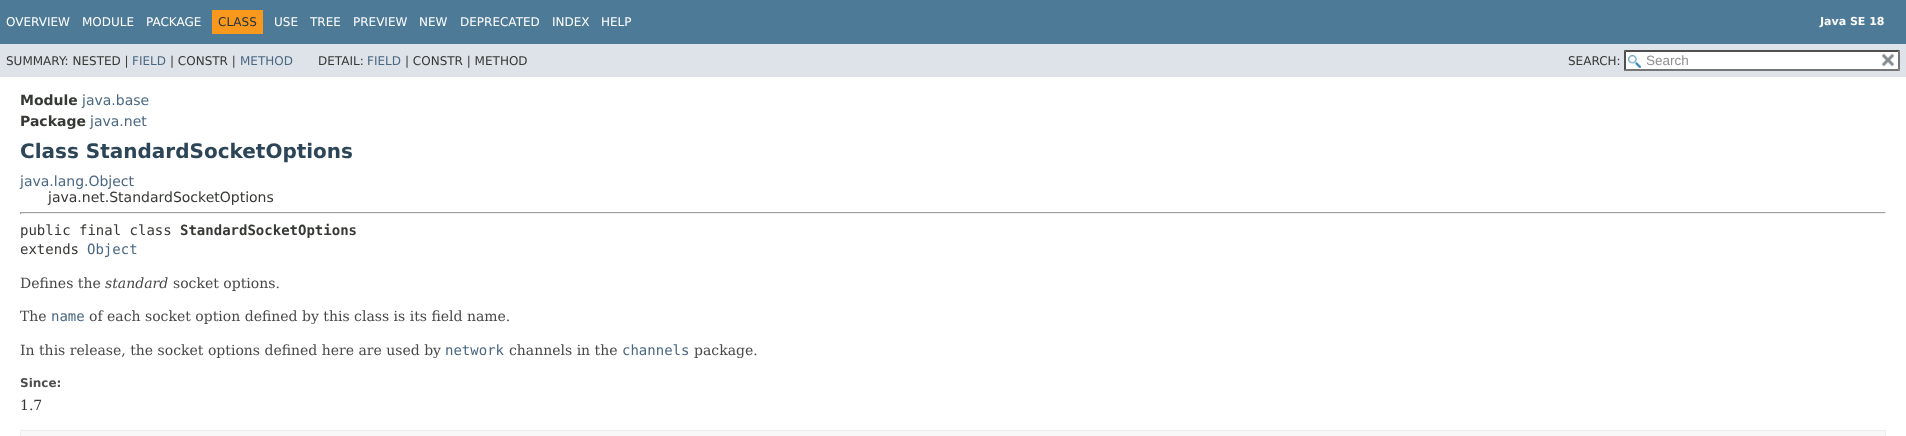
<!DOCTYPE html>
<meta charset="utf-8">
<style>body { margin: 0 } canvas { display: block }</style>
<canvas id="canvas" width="1906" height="436"></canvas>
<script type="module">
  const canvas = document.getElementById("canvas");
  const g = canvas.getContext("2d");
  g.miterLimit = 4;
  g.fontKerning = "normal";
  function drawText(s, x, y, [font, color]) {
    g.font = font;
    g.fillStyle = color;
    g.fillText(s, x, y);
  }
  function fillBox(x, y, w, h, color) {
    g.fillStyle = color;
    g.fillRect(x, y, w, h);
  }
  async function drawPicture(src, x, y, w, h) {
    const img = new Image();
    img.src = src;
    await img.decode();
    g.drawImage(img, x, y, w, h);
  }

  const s1 = ["12px DejaVu Sans", "#FFFFFF"];
  const s2 = ["12px DejaVu Sans", "#253441"];
  const s3 = ["bold 11px DejaVu Sans", "#FFFFFF"];
  const s4 = ["12px DejaVu Sans", "#353833"];
  const s5 = ["12px DejaVu Sans", "#4A6782"];
  const s6 = ["13.5px Liberation Sans", "#909090"];
  const s7 = ["bold 14px DejaVu Sans", "#353833"];
  const s8 = ["14px DejaVu Sans", "#4A6782"];
  const s9 = ["bold 20px DejaVu Sans", "#2C4557"];
  const s10 = ["14px DejaVu Sans", "#353833"];
  const s11 = ["14px DejaVu Sans Mono", "#353833"];
  const s12 = ["bold 14px DejaVu Sans Mono", "#353833"];
  const s13 = ["14px DejaVu Sans Mono", "#4A6782"];
  const s14 = ["14px DejaVu Serif", "#474747"];
  const s15 = ["italic 14px DejaVu Serif", "#474747"];
  const s16 = ["bold 12px DejaVu Sans", "#4E4E4E"];
  const s17 = ["14px DejaVu Serif", "#353833"];

  fillBox(0, 0, 1906, 436, "#FFFFFF");
  fillBox(0, 0, 1906, 44, "#4D7A97");
  drawText("OVERVIEW", 6, 26, s1);
  drawText("MODULE", 82, 26, s1);
  drawText("PACKAGE", 146, 26, s1);
  fillBox(212, 10, 51, 24, "#F8981D");
  drawText("CLASS", 218, 26, s2);
  drawText("USE", 274, 26, s1);
  drawText("TREE", 310, 26, s1);
  drawText("PREVIEW", 353, 26, s1);
  drawText("NEW", 419, 26, s1);
  drawText("DEPRECATED", 460, 26, s1);
  drawText("INDEX", 552, 26, s1);
  drawText("HELP", 601, 26, s1);
  drawText("Java SE 18", 1820, 25, s3);
  fillBox(0, 44, 1906, 33, "#DEE3E9");
  drawText("SUMMARY: NESTED |", 6, 65, s4);
  drawText("FIELD", 132, 65, s5);
  drawText("| CONSTR |", 170, 65, s4);
  drawText("METHOD", 240, 65, s5);
  drawText("DETAIL:", 318, 65, s4);
  drawText("FIELD", 367, 65, s5);
  drawText("| CONSTR | METHOD", 405, 65, s4);
  drawText("SEARCH:", 1568, 65, s4);
  fillBox(1624, 50, 276, 21, "#FFFFFF");
  await drawPicture("pic1.png", 1628, 55, 13, 13);
  g.fillStyle = "#4F4F4F";
  g.beginPath();
  g.moveTo(1624, 50);
  g.lineTo(1900, 50);
  g.lineTo(1898, 52);
  g.lineTo(1626, 52);
  g.closePath();
  g.fill();
  g.fillStyle = "#767676";
  g.beginPath();
  g.moveTo(1900, 50);
  g.lineTo(1900, 71);
  g.lineTo(1898, 69);
  g.lineTo(1898, 52);
  g.closePath();
  g.fill();
  g.beginPath();
  g.moveTo(1900, 71);
  g.lineTo(1624, 71);
  g.lineTo(1626, 69);
  g.lineTo(1898, 69);
  g.closePath();
  g.fill();
  g.fillStyle = "#4F4F4F";
  g.beginPath();
  g.moveTo(1624, 71);
  g.lineTo(1624, 50);
  g.lineTo(1626, 52);
  g.lineTo(1626, 69);
  g.closePath();
  g.fill();
  drawText("Search", 1646, 65, s6);
  await drawPicture("pic2.png", 1882, 53, 12, 13);
  drawText("Module", 20, 105, s7);
  drawText("java.base", 82, 105, s8);
  drawText("Package", 20, 126, s7);
  drawText("java.net", 90, 126, s8);
  drawText("Class StandardSocketOptions", 20, 158, s9);
  drawText("java.lang.Object", 20, 186, s8);
  drawText("java.net.StandardSocketOptions", 48, 202, s10);
  fillBox(20, 212, 1866, 1, "#9F9F9F");
  fillBox(1885, 212, 1, 2, "#EEEEEE");
  fillBox(20, 213, 1866, 1, "#EEEEEE");
  fillBox(20, 212, 1, 2, "#9F9F9F");
  drawText("public final class", 20, 235, s11);
  drawText("StandardSocketOptions", 180, 235, s12);
  drawText("extends", 20, 254, s11);
  drawText("Object", 87, 254, s13);
  drawText("Defines the", 20, 288, s14);
  drawText("standard", 105, 288, s15);
  drawText("socket options.", 173, 288, s14);
  drawText("The", 20, 321, s14);
  drawText("name", 51, 321, s13);
  drawText("of each socket option defined by this class is its field name.", 89, 321, s14);
  drawText("In this release, the socket options defined here are used by", 20, 355, s14);
  drawText("network", 445, 355, s13);
  drawText("channels in the", 509, 355, s14);
  drawText("channels", 622, 355, s13);
  drawText("package.", 694, 355, s14);
  drawText("Since:", 20, 387, s16);
  drawText("1.7", 20, 410, s17);
  g.fillStyle = "#F8F8F8";
  g.beginPath();
  g.rect(20.5, 430.5, 1865, 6);
  g.fill();
  g.strokeStyle = "#EDEDED";
  g.stroke();
</script>
